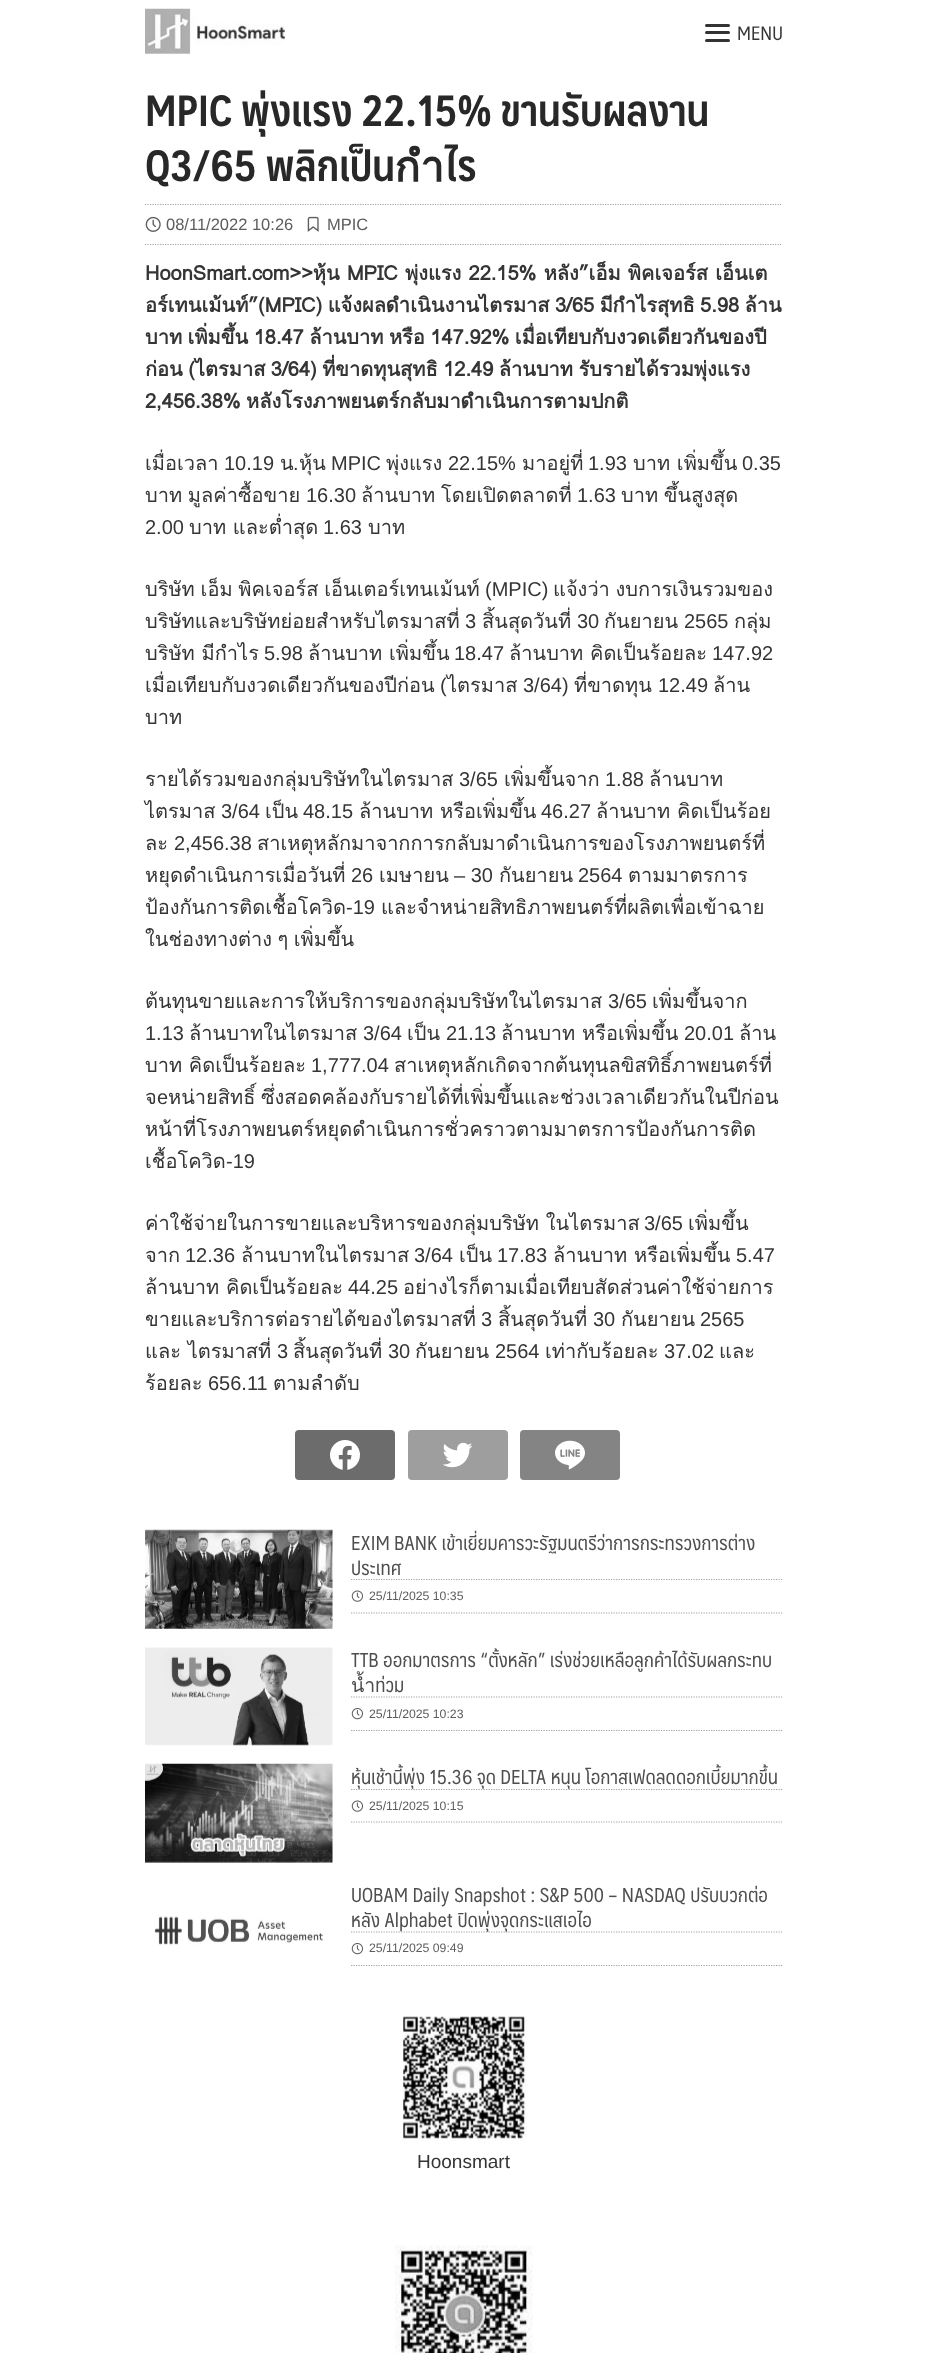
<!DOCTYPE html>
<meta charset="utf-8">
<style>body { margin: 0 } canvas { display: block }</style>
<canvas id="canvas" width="927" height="2353"></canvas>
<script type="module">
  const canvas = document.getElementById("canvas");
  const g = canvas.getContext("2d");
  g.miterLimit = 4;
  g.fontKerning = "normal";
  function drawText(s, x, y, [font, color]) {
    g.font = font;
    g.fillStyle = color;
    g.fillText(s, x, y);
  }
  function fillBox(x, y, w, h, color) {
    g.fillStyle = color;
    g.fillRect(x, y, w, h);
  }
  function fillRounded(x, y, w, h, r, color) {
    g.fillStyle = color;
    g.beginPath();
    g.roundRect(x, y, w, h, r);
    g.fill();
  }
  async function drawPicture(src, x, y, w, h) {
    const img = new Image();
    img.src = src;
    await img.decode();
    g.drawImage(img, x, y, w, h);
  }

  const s1 = ["19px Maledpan", "#353535"];
  const s2 = ["bold 42.5px Maledpan", "#282828"];
  const s3 = ["16.5px Liberation Sans", "#5D5D5D"];
  const s4 = ["bold 20px Loma", "#353535"];
  const s5 = ["20px Loma", "#353535"];
  const s6 = ["20px Liberation Sans", "#353535"];
  const s7 = ["19.5px Maledpan", "#4E4E4E"];
  const s8 = ["12.25px Liberation Sans", "#5D5D5D"];
  const s9 = ["19px Liberation Sans", "#353535"];

  fillBox(0, 0, 927, 2353, "#FFFFFF");
  g.fillStyle = "rgba(0, 0, 0, 0.2)";
  g.filter = "blur(0.5px)";
  g.beginPath();
  g.rect(0, 0, 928, 63);
  g.fill();
  g.filter = "none";
  fillBox(0, 0, 927, 63, "#FFFFFF");
  await drawPicture("pic1.png", 145, 8, 140, 46);
  fillRounded(705, 24, 25, 3, 1.5, "#333333");
  fillRounded(705, 31, 25, 3, 1.5, "#333333");
  fillRounded(705, 39, 25, 3, 1.5, "#333333");
  drawText("MENU", 737, 40, s1);
  drawText("MPIC พุ่งแรง 22.15% ขานรับผลงาน", 145, 126, s2);
  drawText("Q3/65 พลิกเป็นกำไร", 145, 181, s2);
  g.beginPath();
  g.moveTo(145, 204.5);
  g.lineTo(782.5, 204.5);
  g.strokeStyle = "#A4A4A4";
  g.lineWidth = 1.2;
  g.setLineDash([1.25, 1.25]);
  g.stroke();
  g.beginPath();
  g.moveTo(145, 244.5);
  g.lineTo(782.5, 244.5);
  g.stroke();
  await drawPicture("pic2.png", 145, 216, 16, 16);
  drawText("08/11/2022 10:26", 166, 230, s3);
  await drawPicture("pic3.png", 307, 216, 12, 16);
  drawText("MPIC", 327, 230, s3);
  g.wordSpacing = "0.5px";
  drawText("HoonSmart.com>>หุ้น MPIC พุ่งแรง 22.15% หลัง”เอ็ม พิคเจอร์ส เอ็นเต", 145, 280, s4);
  g.wordSpacing = "-1.25px";
  drawText("อร์เทนเม้นท์”(MPIC) แจ้งผลดำเนินงานไตรมาส 3/65 มีกำไรสุทธิ 5.98 ล้าน", 145, 312, s4);
  drawText("บาท เพิ่มขึ้น 18.47 ล้านบาท หรือ 147.92% เมื่อเทียบกับงวดเดียวกันของปี", 145, 344, s4);
  drawText("ก่อน (ไตรมาส 3/64) ที่ขาดทุนสุทธิ 12.49 ล้านบาท รับรายได้รวมพุ่งแรง", 145, 376, s4);
  drawText("2,456.38% หลังโรงภาพยนตร์กลับมาดำเนินการตามปกติ", 145, 408, s4);
  g.wordSpacing = "0px";
  drawText("เมื่อเวลา", 145, 470, s5);
  drawText("10.19", 224, 470, s6);
  drawText("น", 280, 470, s5);
  drawText(".", 293, 470, s6);
  drawText("หุ้น", 299, 470, s5);
  drawText("MPIC", 331, 470, s6);
  drawText("พุ่งแรง", 386, 470, s5);
  drawText("22.15%", 448, 470, s6);
  drawText("มาอยู่ที่", 522, 470, s5);
  drawText("1.93", 588, 470, s6);
  drawText("บาท เพิ่มขึ้น", 633, 470, s5);
  drawText("0.35", 742, 470, s6);
  g.wordSpacing = "-1px";
  drawText("บาท มูลค่าซื้อขาย", 145, 502, s5);
  g.wordSpacing = "0px";
  drawText("16.30", 306, 502, s6);
  g.wordSpacing = "-1px";
  drawText("ล้านบาท โดยเปิดตลาดที่", 361, 502, s5);
  g.wordSpacing = "0px";
  drawText("1.63", 577, 502, s6);
  g.wordSpacing = "-1px";
  drawText("บาท ขึ้นสูงสุด", 621, 502, s5);
  g.wordSpacing = "0px";
  drawText("2.00", 145, 534, s6);
  drawText("บาท และต่ำสุด", 189, 534, s5);
  drawText("1.63", 323, 534, s6);
  drawText("บาท", 368, 534, s5);
  g.wordSpacing = "-1px";
  drawText("บริษัท เอ็ม พิคเจอร์ส เอ็นเตอร์เทนเม้นท์", 145, 596, s5);
  g.wordSpacing = "0px";
  drawText("(MPIC)", 485, 596, s6);
  g.wordSpacing = "-1px";
  drawText("แจ้งว่า งบการเงินรวมของ", 553, 596, s5);
  g.wordSpacing = "0px";
  drawText("บริษัทและบริษัทย่อยสำหรับไตรมาสที่", 145, 628, s5);
  drawText("3", 465, 628, s6);
  drawText("สิ้นสุดวันที่", 482, 628, s5);
  drawText("30", 577, 628, s6);
  drawText("กันยายน", 604, 628, s5);
  drawText("2565", 684, 628, s6);
  drawText("กลุ่ม", 734, 628, s5);
  drawText("บริษัท มีกำไร", 145, 660, s5);
  drawText("5.98", 264, 660, s6);
  drawText("ล้านบาท เพิ่มขึ้น", 308, 660, s5);
  drawText("18.47", 454, 660, s6);
  drawText("ล้านบาท คิดเป็นร้อยละ", 509, 660, s5);
  drawText("147.92", 712, 660, s6);
  drawText("เมื่อเทียบกับงวดเดียวกันของปีก่อน", 145, 692, s5);
  drawText("(", 440, 692, s6);
  drawText("ไตรมาส", 447, 692, s5);
  drawText("3/64)", 523, 692, s6);
  drawText("ที่ขาดทุน", 574, 692, s5);
  drawText("12.49", 658, 692, s6);
  drawText("ล้าน", 713, 692, s5);
  drawText("บาท", 145, 724, s5);
  drawText("รายได้รวมของกลุ่มบริษัทในไตรมาส", 145, 786, s5);
  drawText("3/65", 459, 786, s6);
  drawText("เพิ่มขึ้นจาก", 504, 786, s5);
  drawText("1.88", 605, 786, s6);
  drawText("ล้านบาท", 649, 786, s5);
  drawText("ไตรมาส", 145, 818, s5);
  drawText("3/64", 221, 818, s6);
  drawText("เป็น", 265, 818, s5);
  drawText("48.15", 303, 818, s6);
  drawText("ล้านบาท หรือเพิ่มขึ้น", 359, 818, s5);
  drawText("46.27", 541, 818, s6);
  drawText("ล้านบาท คิดเป็นร้อย", 596, 818, s5);
  drawText("ละ", 145, 850, s5);
  drawText("2,456.38", 174, 850, s6);
  drawText("สาเหตุหลักมาจากการกลับมาดำเนินการของโรงภาพยนตร์ที่", 257, 850, s5);
  drawText("หยุดดำเนินการเมื่อวันที่", 145, 882, s5);
  drawText("26", 351, 882, s6);
  drawText("เมษายน", 379, 882, s5);
  drawText("– 30", 454, 882, s6);
  drawText("กันยายน", 499, 882, s5);
  drawText("2564", 578, 882, s6);
  drawText("ตามมาตรการ", 628, 882, s5);
  drawText("ป้องกันการติดเชื้อโควิด", 145, 914, s5);
  drawText("-19", 346, 914, s6);
  drawText("และจำหน่ายสิทธิภาพยนตร์ที่ผลิตเพื่อเข้าฉาย", 381, 914, s5);
  g.wordSpacing = "-1.25px";
  drawText("ในช่องทางต่าง ๆ เพิ่มขึ้น", 145, 946, s5);
  g.wordSpacing = "0px";
  drawText("ต้นทุนขายและการให้บริการของกลุ่มบริษัทในไตรมาส", 145, 1008, s5);
  drawText("3/65", 608, 1008, s6);
  drawText("เพิ่มขึ้นจาก", 652, 1008, s5);
  drawText("1.13", 145, 1040, s6);
  drawText("ล้านบาทในไตรมาส", 189, 1040, s5);
  drawText("3/64", 363, 1040, s6);
  drawText("เป็น", 407, 1040, s5);
  drawText("21.13", 446, 1040, s6);
  drawText("ล้านบาท หรือเพิ่มขึ้น", 501, 1040, s5);
  drawText("20.01", 684, 1040, s6);
  drawText("ล้าน", 739, 1040, s5);
  drawText("บาท คิดเป็นร้อยละ", 145, 1072, s5);
  drawText("1,777.04", 311, 1072, s6);
  drawText("สาเหตุหลักเกิดจากต้นทุนลขิสทิธิ์ภาพยนตร์ที่", 394, 1072, s5);
  drawText("จ", 145, 1104, s5);
  drawText("e", 157, 1104, s6);
  g.wordSpacing = "-1.25px";
  drawText("หน่ายสิทธิ์ ซึ่งสอดคล้องกับรายได้ที่เพิ่มขึ้นและช่วงเวลาเดียวกันในปีก่อน", 168, 1104, s5);
  g.wordSpacing = "0px";
  drawText("หน้าที่โรงภาพยนตร์หยุดดำเนินการชั่วคราวตามมาตรการป้องกันการติด", 145, 1136, s5);
  drawText("เชื้อโควิด", 145, 1168, s5);
  drawText("-19", 226, 1168, s6);
  drawText("ค่าใช้จ่ายในการขายและบริหารของกลุ่มบริษัท ในไตรมาส", 145, 1230, s5);
  drawText("3/65", 644, 1230, s6);
  drawText("เพิ่มขึ้น", 688, 1230, s5);
  drawText("จาก", 145, 1262, s5);
  drawText("12.36", 185, 1262, s6);
  drawText("ล้านบาทในไตรมาส", 241, 1262, s5);
  drawText("3/64", 414, 1262, s6);
  drawText("เป็น", 459, 1262, s5);
  drawText("17.83", 497, 1262, s6);
  drawText("ล้านบาท หรือเพิ่มขึ้น", 553, 1262, s5);
  drawText("5.47", 736, 1262, s6);
  drawText("ล้านบาท คิดเป็นร้อยละ", 145, 1294, s5);
  drawText("44.25", 348, 1294, s6);
  drawText("อย่างไรก็ตามเมื่อเทียบสัดส่วนค่าใช้จ่ายการ", 403, 1294, s5);
  drawText("ขายและบริการต่อรายได้ของไตรมาสที่", 145, 1326, s5);
  drawText("3", 481, 1326, s6);
  drawText("สิ้นสุดวันที่", 498, 1326, s5);
  drawText("30", 593, 1326, s6);
  drawText("กันยายน", 621, 1326, s5);
  drawText("2565", 700, 1326, s6);
  drawText("และ ไตรมาสที่", 145, 1358, s5);
  drawText("3", 277, 1358, s6);
  drawText("สิ้นสุดวันที่", 293, 1358, s5);
  drawText("30", 388, 1358, s6);
  drawText("กันยายน", 415, 1358, s5);
  drawText("2564", 495, 1358, s6);
  drawText("เท่ากับร้อยละ", 545, 1358, s5);
  drawText("37.02", 664, 1358, s6);
  drawText("และ", 719, 1358, s5);
  drawText("ร้อยละ", 145, 1390, s5);
  drawText("656.11", 208, 1390, s6);
  drawText("ตามลำดับ", 273, 1390, s5);
  fillRounded(295, 1430, 100, 50, 4, "#6C6C6C");
  await drawPicture("pic4.png", 330, 1440, 30, 30);
  fillRounded(408, 1430, 100, 50, 4, "#9E9E9E");
  await drawPicture("pic5.png", 443, 1442, 30, 26);
  fillRounded(520, 1430, 100, 50, 4, "#848484");
  await drawPicture("pic6.png", 555, 1440, 30, 30);
  await drawPicture("pic7.png", 145, 1529, 188, 100);
  drawText("EXIM BANK เข้าเยี่ยมคารวะรัฐมนตรีว่าการกระทรวงการต่าง", 351, 1550, s7);
  drawText("ประเทศ", 351, 1575, s7);
  g.beginPath();
  g.moveTo(351, 1579.5);
  g.lineTo(782.5, 1579.5);
  g.stroke();
  g.beginPath();
  g.moveTo(351, 1613);
  g.lineTo(782.5, 1613);
  g.stroke();
  await drawPicture("pic8.png", 351, 1590, 12, 12);
  drawText("25/11/2025 10:35", 369, 1600, s8);
  await drawPicture("pic9.png", 145, 1647, 188, 99);
  drawText("TTB ออกมาตรการ “ตั้งหลัก” เร่งช่วยเหลือลูกค้าได้รับผลกระทบ", 351, 1667, s7);
  drawText("น้ำท่วม", 351, 1692, s7);
  g.beginPath();
  g.moveTo(351, 1697);
  g.lineTo(782.5, 1697);
  g.stroke();
  g.beginPath();
  g.moveTo(351, 1730.5);
  g.lineTo(782.5, 1730.5);
  g.stroke();
  await drawPicture("pic10.png", 351, 1708, 12, 12);
  drawText("25/11/2025 10:23", 369, 1718, s8);
  await drawPicture("pic11.png", 145, 1763, 188, 100);
  drawText("หุ้นเช้านี้พุ่ง 15.36 จุด DELTA หนุน โอกาสเฟดลดดอกเบี้ยมากขึ้น", 351, 1784, s7);
  g.beginPath();
  g.moveTo(351, 1789.5);
  g.lineTo(782.5, 1789.5);
  g.stroke();
  g.beginPath();
  g.moveTo(351, 1822);
  g.lineTo(782.5, 1822);
  g.stroke();
  await drawPicture("pic8.png", 351, 1800, 12, 12);
  drawText("25/11/2025 10:15", 369, 1810, s8);
  await drawPicture("pic12.png", 154, 1916, 169, 30);
  drawText("UOBAM Daily Snapshot : S&P 500 – NASDAQ ปรับบวกต่อ", 351, 1902, s7);
  drawText("หลัง Alphabet ปิดพุ่งจุดกระแสเอไอ", 351, 1927, s7);
  g.beginPath();
  g.moveTo(351, 1932);
  g.lineTo(782.5, 1932);
  g.strokeStyle = "rgba(141, 141, 141, 0.8)";
  g.stroke();
  g.beginPath();
  g.moveTo(351, 1965.5);
  g.lineTo(782.5, 1965.5);
  g.strokeStyle = "#A4A4A4";
  g.stroke();
  await drawPicture("pic10.png", 351, 1943, 12, 12);
  drawText("25/11/2025 09:49", 369, 1952, s8);
  await drawPicture("pic13.png", 402, 2016, 125, 125);
  drawText("Hoonsmart", 417, 2168, s9);
  await drawPicture("pic14.png", 395, 2245, 138, 108);
</script>
